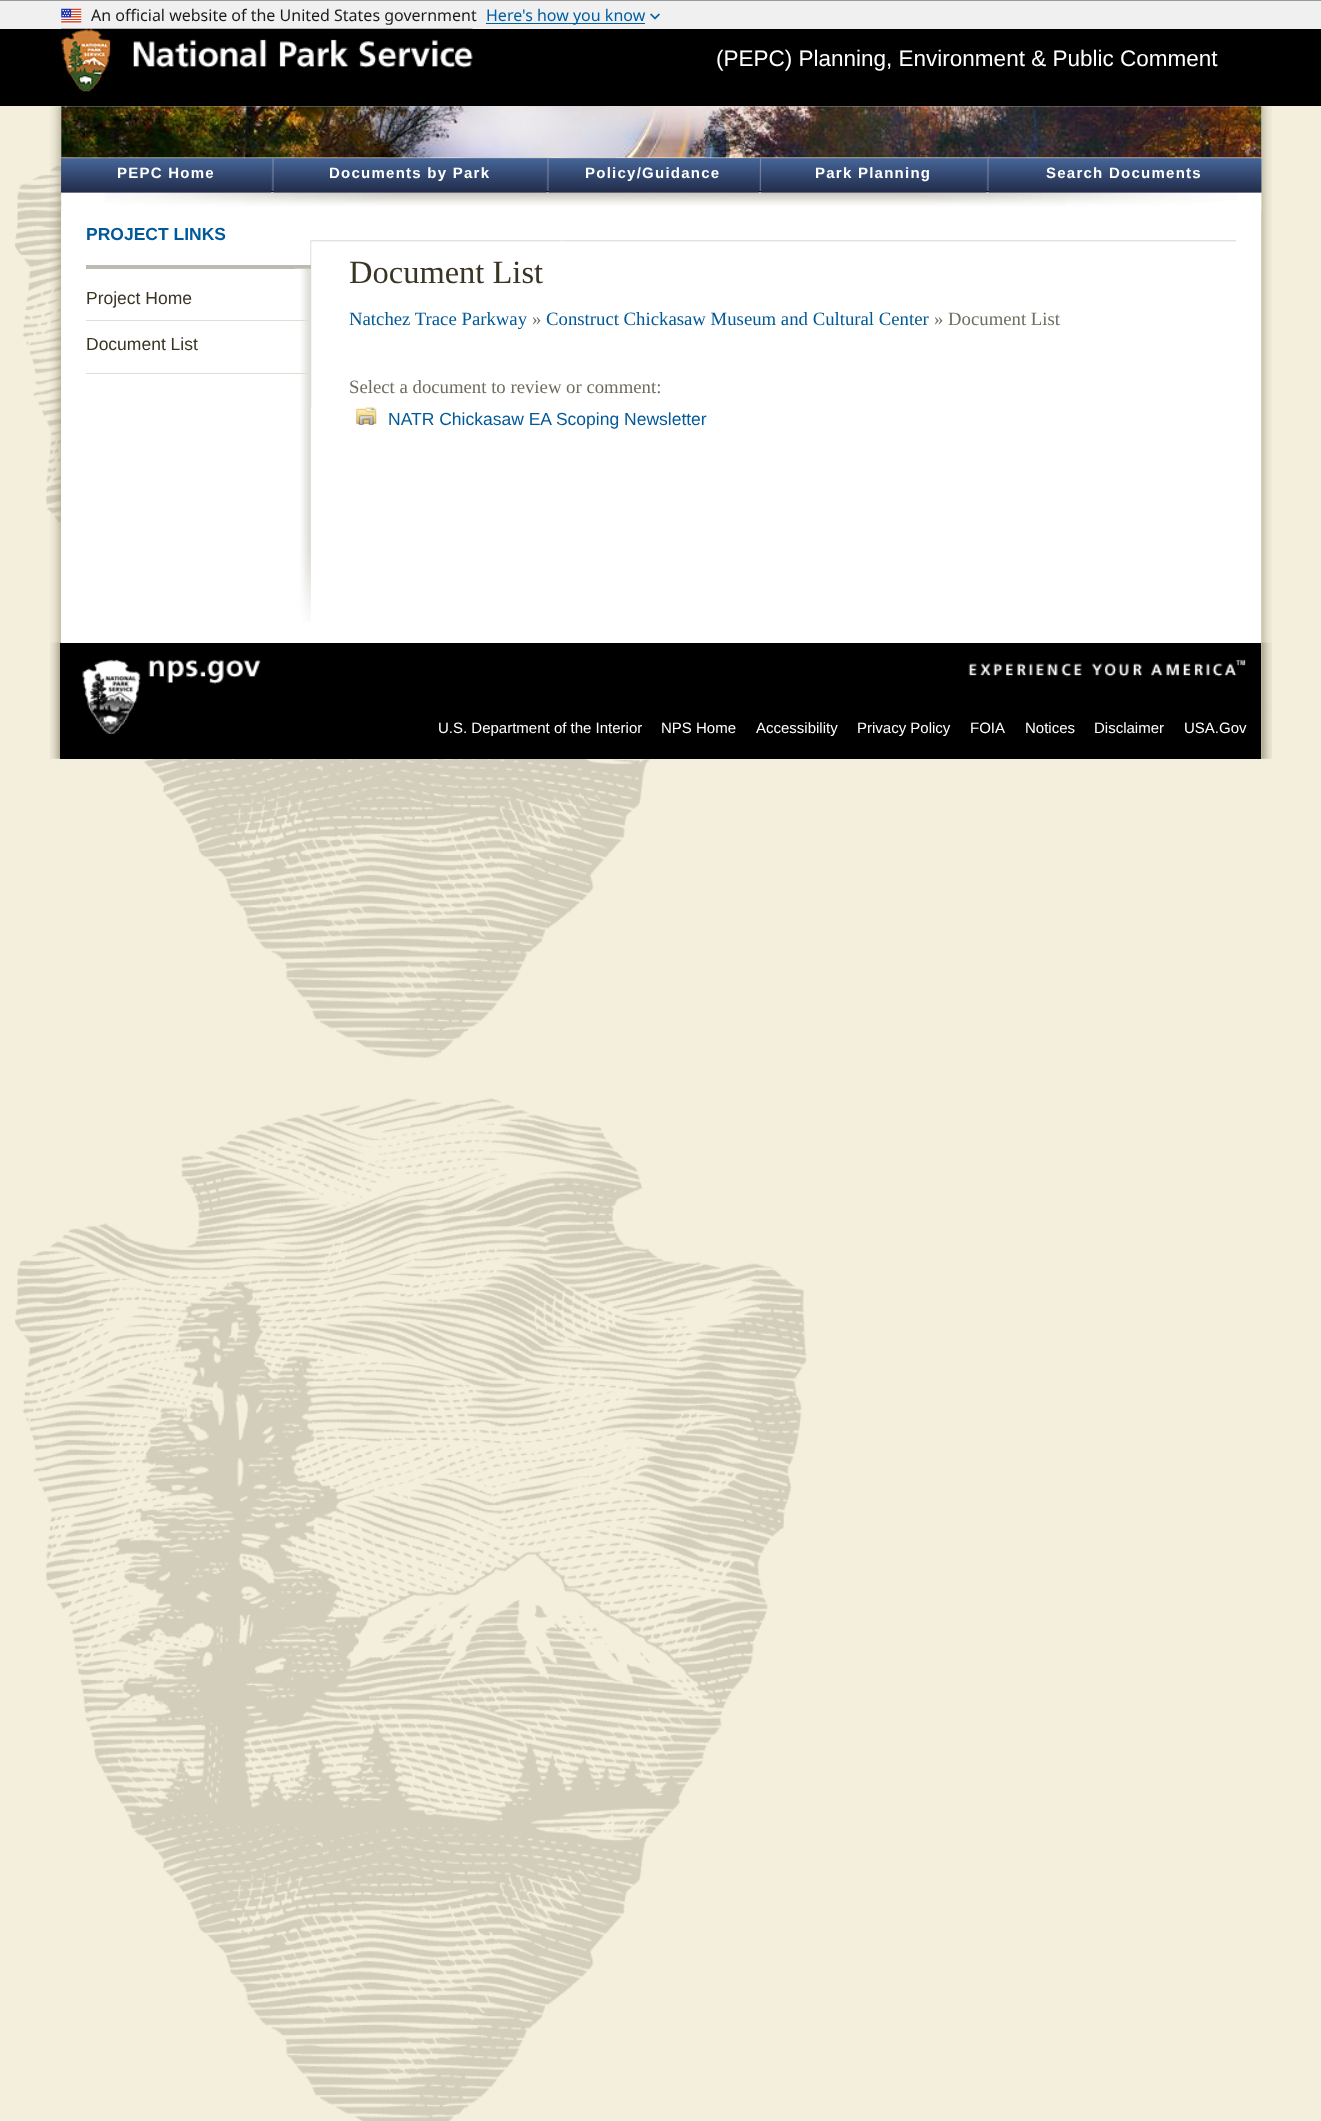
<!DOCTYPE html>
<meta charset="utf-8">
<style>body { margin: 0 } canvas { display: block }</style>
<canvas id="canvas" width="1321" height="2121"></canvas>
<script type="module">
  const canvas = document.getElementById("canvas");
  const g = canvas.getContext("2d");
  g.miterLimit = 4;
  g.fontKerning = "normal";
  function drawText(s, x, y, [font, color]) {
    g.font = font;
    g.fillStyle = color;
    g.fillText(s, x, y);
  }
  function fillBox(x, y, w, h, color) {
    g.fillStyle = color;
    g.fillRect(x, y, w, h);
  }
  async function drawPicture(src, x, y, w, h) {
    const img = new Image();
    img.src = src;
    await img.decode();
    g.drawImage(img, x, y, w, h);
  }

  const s1 = ["16px Noto Sans", "#1B1B1B"];
  const s2 = ["16px Noto Sans", "#005EA2"];
  const s3 = ["22.5px Liberation Sans", "#FFFFFF"];
  const s4 = ["bold 15px Liberation Sans", "#FFFFFF"];
  const s5 = ["bold 17.5px Liberation Sans", "#005999"];
  const s6 = ["17.5px Liberation Sans", "#393423"];
  const s7 = ["32.5px Liberation Serif", "#393423"];
  const s8 = ["18.75px Liberation Serif", "#005999"];
  const s9 = ["18.75px Liberation Serif", "#706D5F"];
  const s10 = ["17.5px Liberation Sans", "#005999"];
  const s11 = ["15px Liberation Sans", "#FFFFFF"];

  fillBox(0, 0, 1321, 2121, "#F4EFDD");
  await drawPicture("pic1.png", 15, 106, 792, 2015);
  fillBox(0, 0, 1321, 1, "#999999");
  fillBox(0, 1, 1321, 28, "#F0F0F0");
  await drawPicture("pic2.png", 61, 8, 21, 15);
  drawText("An official website of the United States government", 91, 21, s1);
  fillBox(486, 23, 159, 1, "#005EA2");
  drawText("Here's how you know", 486, 21, s2);
  await drawPicture("pic3.png", 650, 13, 10, 7);
  fillBox(0, 29, 1321, 77, "#000000");
  await drawPicture("pic4.png", 61, 28, 412, 64);
  drawText("(PEPC) Planning, Environment & Public Comment", 716, 66, s3);
  await drawPicture("pic5.png", 50, 106, 1222, 106);
  await drawPicture("pic6.png", 61, 106, 1201, 52);
  await drawPicture("pic7.png", 61, 158, 1201, 35);
  fillBox(61, 158, 1200, 1, "#6B7A9F");
  fillBox(61, 191, 928, 1, "#000000");
  await drawPicture("pic9.png", 271, 158, 3, 34);
  await drawPicture("pic15.png", 61, 192, 1201, 20);
  await drawPicture("pic8.png", 61, 158, 211, 35);
  g.letterSpacing = "1.25px";
  drawText("PEPC Home", 117, 178, s4);
  await drawPicture("pic9.png", 546, 158, 3, 34);
  await drawPicture("pic10.png", 273, 158, 274, 35);
  drawText("Documents by Park", 329, 178, s4);
  await drawPicture("pic12.png", 758, 158, 4, 34);
  await drawPicture("pic11.png", 548, 158, 211, 35);
  drawText("Policy/Guidance", 585, 178, s4);
  await drawPicture("pic9.png", 986, 158, 3, 34);
  await drawPicture("pic13.png", 761, 158, 226, 35);
  drawText("Park Planning", 815, 178, s4);
  await drawPicture("pic14.png", 988, 158, 274, 35);
  drawText("Search Documents", 1046, 178, s4);
  await drawPicture("pic16.png", 50, 211, 1222, 548);
  fillBox(61, 211, 1200, 432, "#FFFFFF");
  await drawPicture("pic17.png", 310, 240, 927, 168);
  fillBox(86, 265, 225, 4, "#BDBBB1");
  g.letterSpacing = "0px";
  drawText("PROJECT LINKS", 86, 240, s5);
  await drawPicture("pic18.png", 295, 268, 16, 354);
  fillBox(86, 373, 225, 1, "#DEDDD8");
  fillBox(86, 320, 225, 1, "#DEDDD8");
  drawText("Project Home", 86, 304, s6);
  drawText("Document List", 86, 350, s6);
  drawText("Document List", 349, 283, s7);
  drawText("Natchez Trace Parkway", 349, 325, s8);
  drawText("»", 532, 325, s9);
  drawText("Construct Chickasaw Museum and Cultural Center", 546, 325, s8);
  drawText("» Document List", 934, 325, s9);
  drawText("Select a document to review or comment:", 349, 393, s9);
  await drawPicture("pic19.png", 356, 407, 21, 18);
  drawText("NATR Chickasaw EA Scoping Newsletter", 388, 425, s10);
  await drawPicture("pic20.png", 50, 642, 1222, 117);
  fillBox(60, 643, 1201, 116, "#000000");
  await drawPicture("pic21.png", 82, 659, 59, 75);
  await drawPicture("pic22.png", 148, 659, 113, 25);
  await drawPicture("pic23.png", 968, 659, 278, 18);
  drawText("U.S. Department of the Interior", 438, 733, s11);
  drawText("NPS Home", 661, 733, s11);
  drawText("Accessibility", 756, 733, s11);
  drawText("Privacy Policy", 857, 733, s11);
  drawText("FOIA", 970, 733, s11);
  drawText("Notices", 1025, 733, s11);
  drawText("Disclaimer", 1094, 733, s11);
  drawText("USA.Gov", 1184, 733, s11);
</script>
